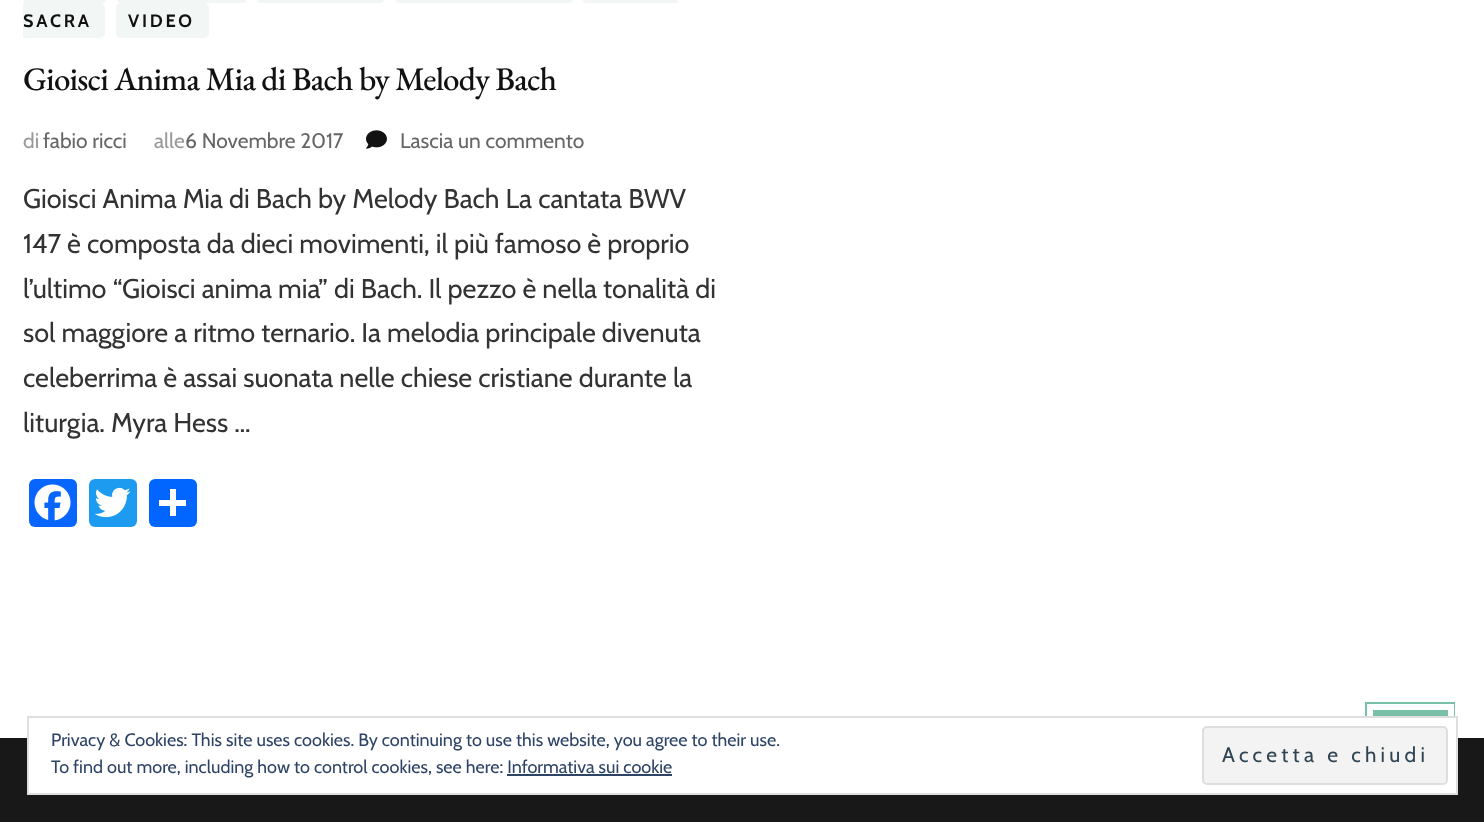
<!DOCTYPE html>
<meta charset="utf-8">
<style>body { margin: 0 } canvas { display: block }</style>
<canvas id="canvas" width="1484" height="822"></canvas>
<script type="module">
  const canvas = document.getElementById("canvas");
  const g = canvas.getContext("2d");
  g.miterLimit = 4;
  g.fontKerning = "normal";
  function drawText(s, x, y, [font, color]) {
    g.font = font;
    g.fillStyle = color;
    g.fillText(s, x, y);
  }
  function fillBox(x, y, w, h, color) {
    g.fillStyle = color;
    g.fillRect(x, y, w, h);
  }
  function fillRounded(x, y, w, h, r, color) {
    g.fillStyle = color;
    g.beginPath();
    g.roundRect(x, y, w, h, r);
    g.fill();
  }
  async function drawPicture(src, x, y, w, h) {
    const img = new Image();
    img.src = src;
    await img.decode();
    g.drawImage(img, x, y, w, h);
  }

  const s1 = ["bold 18px Cabin", "#111111"];
  const s2 = ["500 33px EB Garamond", "#111111"];
  const s3 = ["21px Cabin", "#999999"];
  const s4 = ["21px Cabin", "#666666"];
  const s5 = ["27px Cabin", "#333333"];
  const s6 = ["18px Cabin", "#2E4467"];
  const s7 = ["21px Cabin", "#2E4453"];

  fillBox(0, 0, 1484, 822, "#FFFFFF");
  fillRounded(23, -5, 84, 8, 5, "#F2F7F6");
  fillRounded(117, -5, 129, 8, 5, "#F2F7F6");
  fillRounded(257, -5, 127, 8, 5, "#F2F7F6");
  fillRounded(395, -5, 178, 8, 5, "#F2F7F6");
  g.beginPath();
  g.roundRect(23, 3, 82, 35, [0, 5, 5, 0]);
  g.fill();
  g.letterSpacing = "2.75px";
  drawText("SACRA", 23, 27, s1);
  g.fillStyle = "#F2F7F6";
  g.beginPath();
  g.moveTo(587, -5);
  g.lineTo(678, -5);
  g.lineTo(678, 3);
  g.lineTo(587, 3);
  g.bezierCurveTo(584, 3, 582, 1, 582, -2);
  g.lineTo(582, 0);
  g.bezierCurveTo(582, -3, 584, -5, 587, -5);
  g.closePath();
  g.fill();
  fillRounded(116, 3, 93, 35, 5, "#F2F7F6");
  drawText("VIDEO", 128, 27, s1);
  g.letterSpacing = "-0.85px";
  drawText("Gioisci Anima Mia di Bach by Melody Bach", 23, 90, s2);
  g.letterSpacing = "0px";
  drawText("di", 23, 148, s3);
  drawText("fabio ricci", 43, 148, s4);
  drawText("alle", 154, 148, s3);
  drawText("6 Novembre 2017", 185, 148, s4);
  await drawPicture("pic1.png", 366, 130, 21, 19);
  drawText("Lascia un commento", 400, 148, s4);
  drawText("Gioisci Anima Mia di Bach by Melody Bach La cantata BWV", 23, 208, s5);
  drawText("147 è composta da dieci movimenti, il più famoso è proprio", 23, 253, s5);
  drawText("l’ultimo “Gioisci anima mia” di Bach. Il pezzo è nella tonalità di", 23, 298, s5);
  drawText("sol maggiore a ritmo ternario. Ia melodia principale divenuta", 23, 342, s5);
  drawText("celeberrima è assai suonata nelle chiese cristiane durante la", 23, 387, s5);
  drawText("liturgia. Myra Hess …", 23, 432, s5);
  fillRounded(29, 479, 48, 48, 6, "#0866FF");
  await drawPicture("pic2.png", 34, 484, 37, 37);
  fillRounded(89, 479, 48, 48, 6, "#1D9BF0");
  await drawPicture("pic3.png", 94, 487, 37, 31);
  fillRounded(149, 479, 48, 48, 6, "#0166FF");
  fillBox(170, 489, 6, 27, "#FFFFFF");
  fillBox(159, 500, 27, 6, "#FFFFFF");
  fillBox(1365, 702, 90, 14, "#78C0A8");
  fillBox(0, 738, 1484, 84, "#181818");
  g.strokeStyle = "#FFFFFF";
  g.lineWidth = 6;
  g.strokeRect(1370, 707, 81, 81);
  fillBox(29, 738, 1427, 55, "#FFFFFF");
  g.strokeStyle = "#DEDEDE";
  g.lineWidth = 2;
  g.strokeRect(28, 717, 1429, 77);
  drawText("Privacy & Cookies: This site uses cookies. By continuing to use this website, you agree to their use.", 51, 746, s6);
  g.fillStyle = "#F3F3F3";
  g.beginPath();
  g.roundRect(1203, 727, 244, 57, 4);
  g.fill();
  g.stroke();
  g.letterSpacing = "4.25px";
  drawText("Accetta e chiudi", 1222, 762, s7);
  g.letterSpacing = "0px";
  drawText("To find out more, including how to control cookies, see here: Informativa sui cookie", 51, 773, s6);
  fillBox(507, 774, 165, 2, "#2E4467");
</script>
